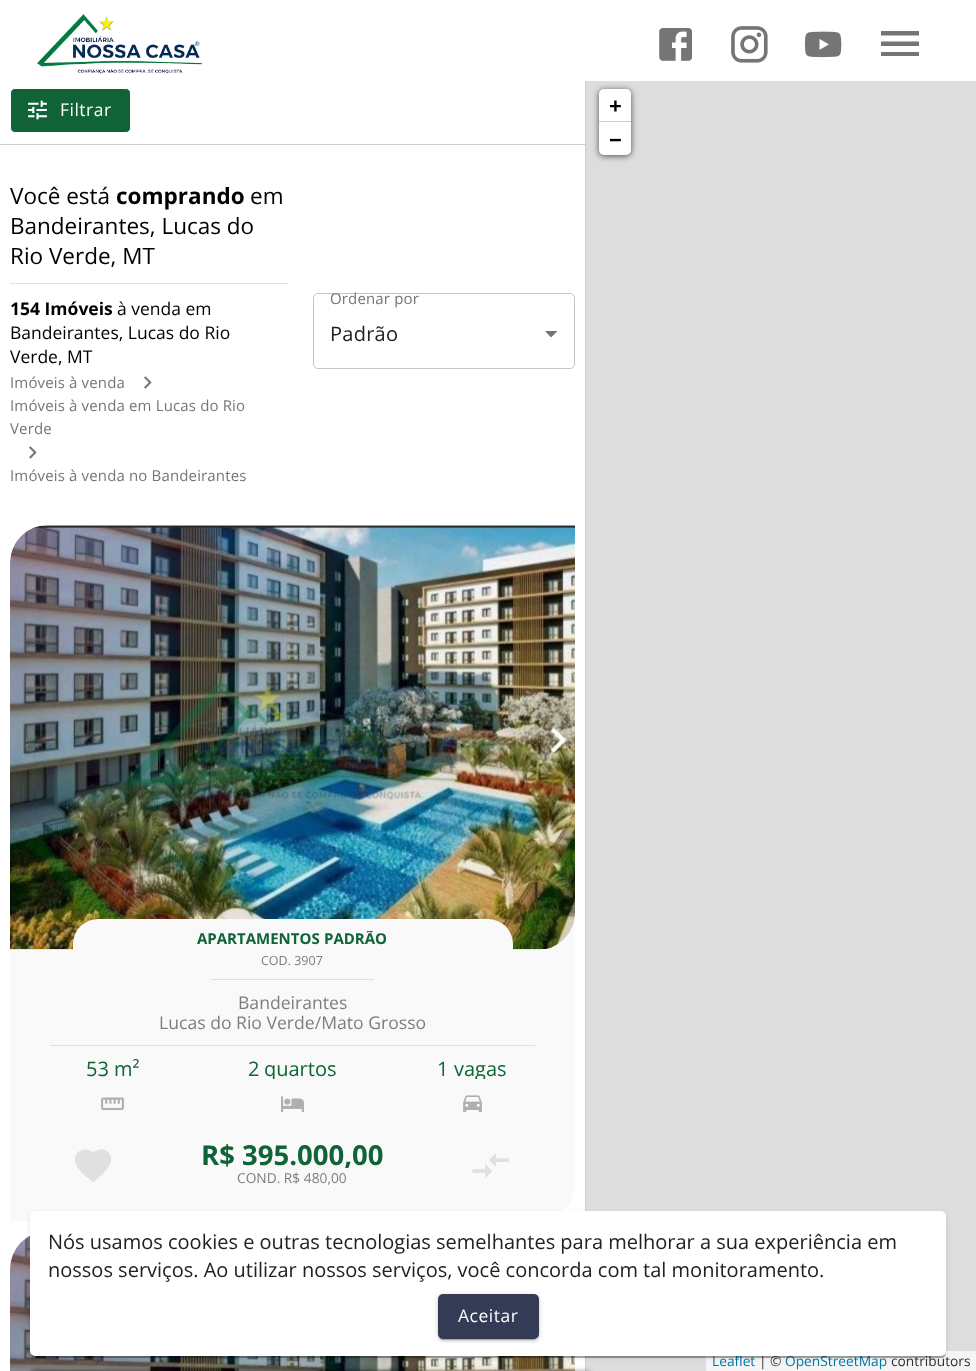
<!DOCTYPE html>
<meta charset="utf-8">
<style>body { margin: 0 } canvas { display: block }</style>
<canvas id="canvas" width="976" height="1371"></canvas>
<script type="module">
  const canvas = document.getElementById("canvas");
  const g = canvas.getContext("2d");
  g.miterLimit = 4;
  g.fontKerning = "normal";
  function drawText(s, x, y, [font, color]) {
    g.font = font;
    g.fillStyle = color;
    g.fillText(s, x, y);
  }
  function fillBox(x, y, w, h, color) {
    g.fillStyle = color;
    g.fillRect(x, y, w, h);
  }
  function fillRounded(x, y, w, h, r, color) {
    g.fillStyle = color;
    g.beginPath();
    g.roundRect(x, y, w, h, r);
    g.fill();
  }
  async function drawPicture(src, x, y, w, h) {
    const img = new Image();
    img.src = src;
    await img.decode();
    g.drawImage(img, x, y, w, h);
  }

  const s1 = ["17.5px Open Sans", "#FFFFFF"];
  const s2 = ["22.5px Open Sans", "#000000"];
  const s3 = ["bold 22.5px Open Sans", "#000000"];
  const s4 = ["bold 17.5px Open Sans", "#000000"];
  const s5 = ["17.5px Open Sans", "#000000"];
  const s6 = ["15px Open Sans", "#757575"];
  const s7 = ["20px Open Sans", "#212121"];
  const s8 = ["bold 15px Open Sans", "#0F6337"];
  const s9 = ["12.5px Open Sans", "#7D7D7D"];
  const s10 = ["17.6px Open Sans", "#7D7D7D"];
  const s11 = ["20px Open Sans", "#0F6337"];
  const s12 = ["bold 27.5px Open Sans", "#0F6337"];
  const s13 = ["13.75px Open Sans", "#7D7D7D"];
  const s14 = ["13.75px Open Sans", "#0078A8"];
  const s15 = ["13.75px Open Sans", "#333333"];

  fillBox(0, 0, 976, 1371, "#FFFFFF");
  fillBox(585, 76, 1, 1295, "#CECECE");
  fillBox(585, 76, 1, 5, "#FFFFFF");
  await drawPicture("pic1.png", 37, 14, 165, 60);
  await drawPicture("pic2.png", 659, 28, 34, 33);
  await drawPicture("pic3.png", 731, 26, 37, 37);
  await drawPicture("pic4.png", 804, 31, 38, 27);
  g.fillStyle = "#757575";
  g.beginPath();
  g.moveTo(881, 56);
  g.lineTo(919, 56);
  g.lineTo(919, 52);
  g.lineTo(881, 52);
  g.closePath();
  g.moveTo(881, 46);
  g.lineTo(919, 46);
  g.lineTo(919, 41.5);
  g.lineTo(881, 41.5);
  g.closePath();
  g.moveTo(881, 31);
  g.lineTo(881, 35.5);
  g.lineTo(919, 35.5);
  g.lineTo(919, 31);
  g.closePath();
  g.fill();
  fillBox(0, 144, 585, 1, "#CECECE");
  g.fillStyle = "#0F6337";
  g.beginPath();
  g.roundRect(10.5, 88.5, 120, 44, 4.5);
  g.fill();
  g.strokeStyle = "#FFFFFF";
  g.stroke();
  await drawPicture("pic5.png", 28, 100, 19, 20);
  g.letterSpacing = "0.5px";
  drawText("Filtrar", 60, 116, s1);
  g.letterSpacing = "0px";
  drawText("Você está", 10, 204, s2);
  drawText("comprando", 116, 204, s3);
  drawText("em", 250, 204, s2);
  drawText("Bandeirantes, Lucas do", 10, 234, s2);
  drawText("Rio Verde, MT", 10, 264, s2);
  fillBox(10, 283, 278, 1, "#E0E0E0");
  drawText("154 Imóveis", 10, 315, s4);
  drawText("à venda em", 117, 315, s5);
  drawText("Bandeirantes, Lucas do Rio", 10, 339, s5);
  drawText("Verde, MT", 10, 363, s5);
  g.letterSpacing = "0.15px";
  drawText("Imóveis à venda", 10, 388, s6);
  await drawPicture("pic6.png", 144, 376, 8, 13);
  drawText("Imóveis à venda em Lucas do Rio", 10, 411, s6);
  drawText("Verde", 10, 434, s6);
  await drawPicture("pic6.png", 29, 446, 8, 13);
  drawText("Imóveis à venda no Bandeirantes", 10, 481, s6);
  g.beginPath();
  g.moveTo(545, 331);
  g.lineTo(551, 337.5);
  g.lineTo(557.5, 331);
  g.closePath();
  g.fill();
  g.beginPath();
  g.roundRect(313.5, 293.5, 261, 75, 4.5);
  g.strokeStyle = "#C4C4C4";
  g.stroke();
  drawText("Ordenar por", 330, 304, s6);
  g.letterSpacing = "0.25px";
  drawText("Padrão", 330, 341, s7);
  g.fillStyle = "#F9F9F9";
  g.beginPath();
  g.roundRect(10, 525, 565, 696, [38, 0, 38, 0]);
  g.fill();
  g.fillStyle = "#D7D7D7";
  g.beginPath();
  g.roundRect(10, 525, 565, 425, [38, 0, 38, 0]);
  g.fill();
  g.save();
  g.beginPath();
  g.roundRect(10, 525, 565, 425, [38, 0, 38, 0]);
  g.clip();
  fillBox(10, 949, 536, 1, "#E6E6E6");
  g.restore();
  await drawPicture("pic7.png", 10, 525, 565, 424);
  g.fillStyle = "#F9F9F9";
  g.beginPath();
  g.roundRect(73, 919, 440, 47, [25, 25, 0, 0]);
  g.fill();
  g.letterSpacing = "0px";
  drawText("APARTAMENTOS", 197, 944, s8);
  g.save();
  g.beginPath();
  g.rect(73, 931, 440, 15);
  g.clip();
  drawText("PADRÃO", 324, 944, s8);
  g.restore();
  drawText("COD. 3907", 261, 965, s9);
  fillBox(211, 979, 163, 1, "#E0E0E0");
  drawText("Bandeirantes", 238, 1009, s10);
  drawText("Lucas do Rio Verde/Mato Grosso", 159, 1029, s10);
  fillBox(50, 1045, 485, 1, "#E0E0E0");
  drawText("53 m²", 86, 1076, s11);
  await drawPicture("pic8.png", 101, 1097, 23, 13);
  drawText("2", 248, 1076, s11);
  g.save();
  g.beginPath();
  g.rect(203, 1059, 180, 20);
  g.clip();
  drawText("quartos", 264, 1076, s11);
  g.restore();
  await drawPicture("pic9.png", 281, 1096, 23, 16);
  drawText("1", 437, 1076, s11);
  g.save();
  g.beginPath();
  g.rect(383, 1059, 180, 20);
  g.clip();
  drawText("vagas", 454, 1076, s11);
  g.restore();
  await drawPicture("pic10.png", 463, 1095, 19, 17);
  g.fillStyle = "#E0E0E0";
  g.beginPath();
  g.moveTo(93, 1182.5);
  g.bezierCurveTo(87.5, 1177.5, 79, 1171.5, 76, 1164);
  g.bezierCurveTo(71, 1152.5, 85.5, 1144, 93, 1153);
  g.bezierCurveTo(101, 1144, 115.5, 1152.5, 110, 1164);
  g.bezierCurveTo(107, 1171, 99, 1177.5, 93, 1182.5);
  g.closePath();
  g.fill();
  g.save();
  g.beginPath();
  g.rect(201, 1140, 183, 28);
  g.clip();
  drawText("R$ 395.000,00", 201, 1165, s12);
  g.restore();
  drawText("COND. R$ 480,00", 237, 1183, s13);
  await drawPicture("pic11.png", 472, 1153, 37, 25);
  g.fillStyle = "#D7D7D7";
  g.beginPath();
  g.roundRect(10, 1231, 565, 140, [38, 0, 0, 0]);
  g.fill();
  await drawPicture("pic12.png", 10, 1236, 565, 135);
  fillBox(586, 81, 390, 1290, "#DDDDDD");
  g.fillStyle = "rgba(0, 0, 0, 0.65)";
  g.filter = "blur(3px)";
  g.beginPath();
  g.roundRect(599, 90, 32, 66, 5);
  g.fill();
  g.filter = "none";
  g.fillStyle = "#FFFFFF";
  g.beginPath();
  g.roundRect(599, 89, 32, 34, [5, 5, 0, 0]);
  g.fill();
  fillBox(599, 121, 32, 1, "#CCCCCC");
  drawText("+", 609, 114, s3);
  g.fillStyle = "#FFFFFF";
  g.beginPath();
  g.roundRect(599, 123, 32, 32, [0, 0, 5, 5]);
  g.fill();
  drawText("−", 609, 148, s3);
  fillBox(706, 1351, 270, 20, "#F5F5F5");
  drawText("Leaflet", 712, 1366, s14);
  drawText("| ©", 759, 1366, s15);
  drawText("OpenStreetMap", 785, 1366, s14);
  drawText("contributors", 891, 1366, s15);
  g.fillStyle = "rgba(0, 0, 0, 0.12)";
  g.filter = "blur(2px)";
  g.beginPath();
  g.roundRect(30, 1213, 916, 145, 5);
  g.fill();
  g.filter = "none";
  g.fillStyle = "rgba(0, 0, 0, 0.14)";
  g.filter = "blur(0.5px)";
  g.beginPath();
  g.roundRect(30, 1213, 916, 145, 5);
  g.fill();
  g.filter = "none";
  g.fillStyle = "rgba(0, 0, 0, 0.2)";
  g.filter = "blur(0.5px)";
  g.beginPath();
  g.roundRect(31, 1215, 914, 143, 4);
  g.fill();
  g.filter = "none";
  g.fillStyle = "rgba(0, 0, 0, 0.12)";
  g.filter = "blur(11px)";
  g.beginPath();
  g.roundRect(30, 1273, 70, 70, 35);
  g.fill();
  g.filter = "none";
  g.fillStyle = "rgba(0, 0, 0, 0.14)";
  g.filter = "blur(6px)";
  g.beginPath();
  g.roundRect(30, 1279, 70, 70, 35);
  g.fill();
  g.filter = "none";
  g.fillStyle = "rgba(0, 0, 0, 0.2)";
  g.filter = "blur(3px)";
  g.beginPath();
  g.roundRect(31, 1276, 68, 68, 34);
  g.fill();
  g.filter = "none";
  fillRounded(30, 1211, 916, 145, 5, "#FFFFFF");
  drawText("Nós usamos cookies e outras tecnologias semelhantes para melhorar a sua experiência em", 48, 1249, s7);
  drawText("nossos serviços. Ao utilizar nossos serviços, você concorda com tal monitoramento.", 48, 1277, s7);
  g.fillStyle = "rgba(0, 0, 0, 0.12)";
  g.filter = "blur(3px)";
  g.beginPath();
  g.roundRect(438, 1295, 101, 45, 5);
  g.fill();
  g.filter = "none";
  g.fillStyle = "rgba(0, 0, 0, 0.14)";
  g.filter = "blur(1px)";
  g.beginPath();
  g.roundRect(438, 1296, 101, 45, 5);
  g.fill();
  g.filter = "none";
  g.fillStyle = "rgba(0, 0, 0, 0.2)";
  g.filter = "blur(0.5px)";
  g.beginPath();
  g.roundRect(440, 1300, 96, 40, 2.5);
  g.fill();
  g.filter = "none";
  fillRounded(438, 1294, 101, 45, 5, "#333B55");
  g.letterSpacing = "0.5px";
  drawText("Aceitar", 458, 1322, s1);
  g.fillStyle = "rgba(0, 0, 0, 0.4)";
  g.filter = "blur(2.5px)";
  g.beginPath();
  g.roundRect(29, 1371, 347, 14, 6);
  g.fill();
  g.filter = "none";
  g.filter = "blur(2.5px)";
  g.beginPath();
  g.roundRect(29, 1371, 562, 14, 6);
  g.fill();
  g.filter = "none";
</script>
